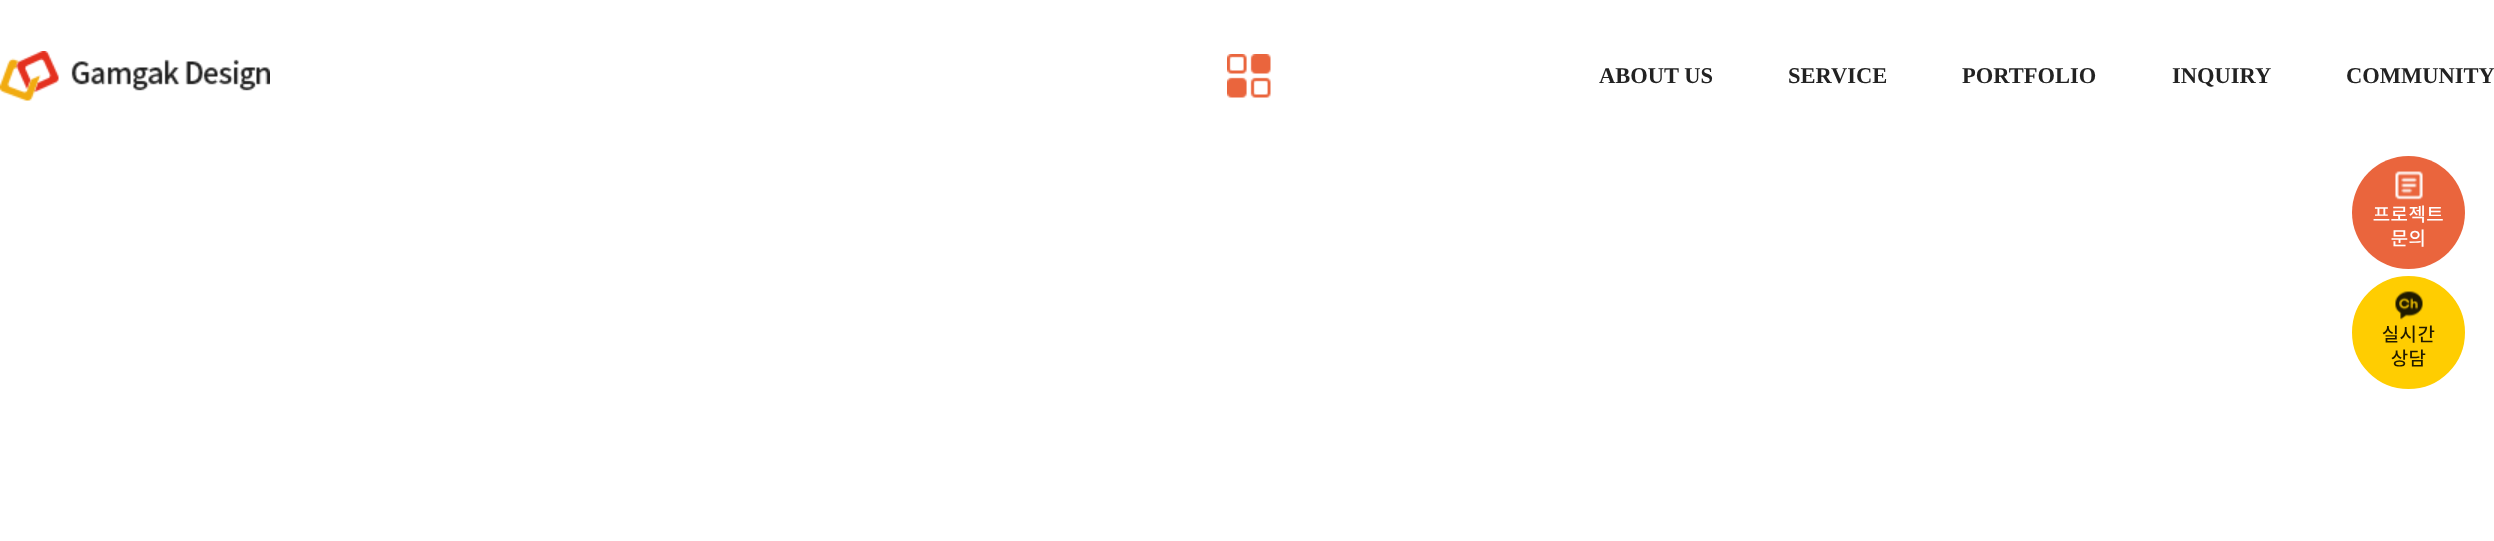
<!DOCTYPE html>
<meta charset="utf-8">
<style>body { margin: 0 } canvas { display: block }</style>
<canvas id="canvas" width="2494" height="541"></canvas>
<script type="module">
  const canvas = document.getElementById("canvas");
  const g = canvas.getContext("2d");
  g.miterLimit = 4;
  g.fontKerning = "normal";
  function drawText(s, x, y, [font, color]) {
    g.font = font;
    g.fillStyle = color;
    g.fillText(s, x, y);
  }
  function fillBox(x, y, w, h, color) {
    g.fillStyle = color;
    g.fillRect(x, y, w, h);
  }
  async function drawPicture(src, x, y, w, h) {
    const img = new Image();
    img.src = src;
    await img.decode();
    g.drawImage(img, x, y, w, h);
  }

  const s1 = ["bold 22.5px Liberation Serif", "#222222"];
  const s2 = ["500 19.5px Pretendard", "#FFFFFF"];
  const s3 = ["500 19.5px Pretendard", "#211B00"];

  fillBox(0, 0, 2494, 541, "#FFFFFF");
  await drawPicture("pic1.png", 0, 51, 270, 50);
  await drawPicture("pic2.png", 1227, 54, 44, 44);
  drawText("ABOUT US", 1599, 83, s1);
  drawText("SERVICE", 1788, 83, s1);
  drawText("PORTFOLIO", 1962, 83, s1);
  drawText("INQUIRY", 2172, 83, s1);
  drawText("COMMUNITY", 2346, 83, s1);
  g.fillStyle = "#EA653D";
  g.beginPath();
  g.arc(2408.5, 212.5, 56.5, 0, Math.PI * 2);
  g.fill();
  await drawPicture("pic3.png", 2395, 171, 28, 29);
  g.letterSpacing = "1px";
  drawText("프로젝트", 2373, 221, s2);
  drawText("문의", 2391, 245, s2);
  g.fillStyle = "#FFCD01";
  g.beginPath();
  g.arc(2408.5, 332.5, 55.5, 0, Math.PI * 2);
  g.fill();
  g.strokeStyle = "#FFCD01";
  g.lineWidth = 2;
  g.stroke();
  await drawPicture("pic4.png", 2395, 291, 28, 29);
  drawText("실시간", 2382, 341, s3);
  drawText("상담", 2391, 365, s3);
</script>
